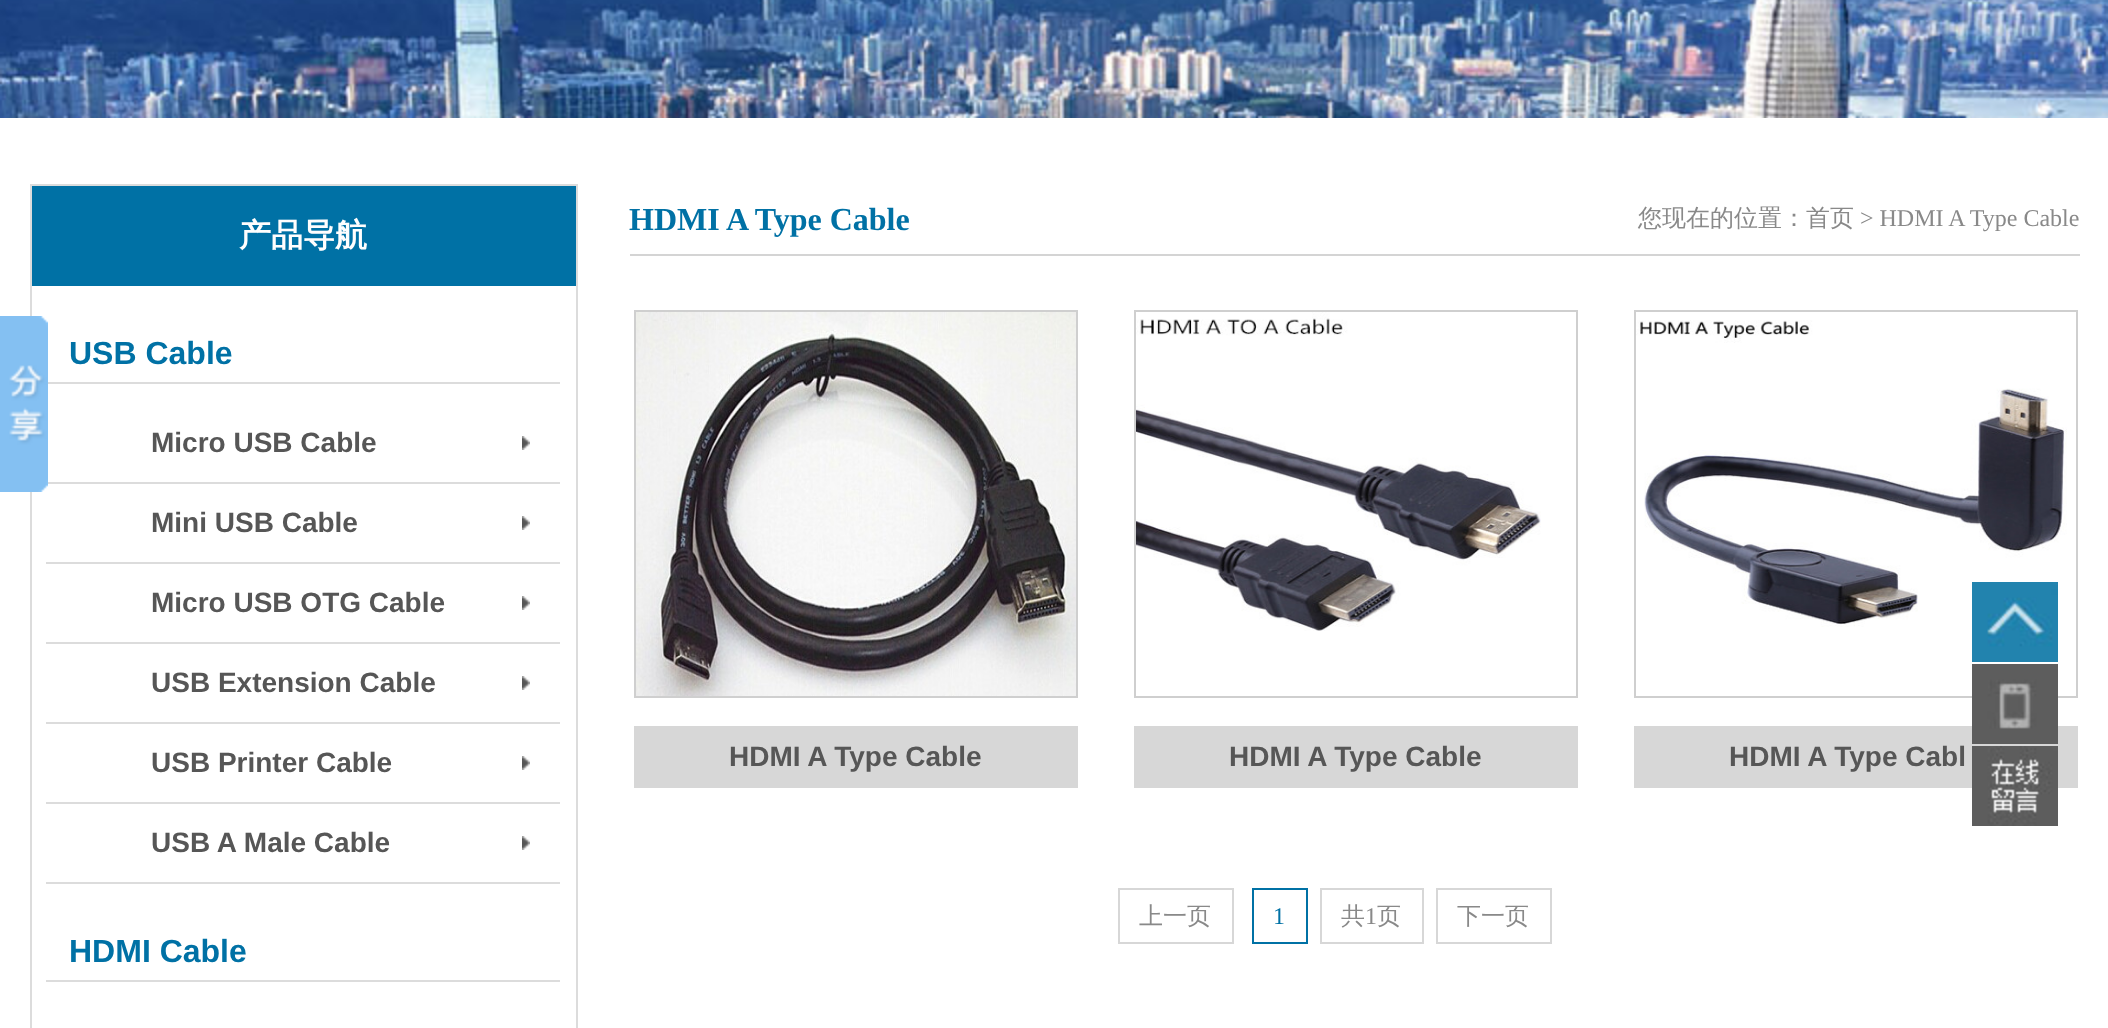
<!DOCTYPE html>
<meta charset="utf-8">
<style>body { margin: 0 } canvas { display: block }</style>
<canvas id="canvas" width="2108" height="1028"></canvas>
<script type="module">
  const canvas = document.getElementById("canvas");
  const g = canvas.getContext("2d");
  g.miterLimit = 4;
  g.fontKerning = "normal";
  function drawText(s, x, y, [font, color]) {
    g.font = font;
    g.fillStyle = color;
    g.fillText(s, x, y);
  }
  function fillBox(x, y, w, h, color) {
    g.fillStyle = color;
    g.fillRect(x, y, w, h);
  }
  async function drawPicture(src, x, y, w, h) {
    const img = new Image();
    img.src = src;
    await img.decode();
    g.drawImage(img, x, y, w, h);
  }

  const s1 = ["bold 32px WenQuanYi Zen Hei", "#FFFEFE"];
  const s2 = ["bold 32px Liberation Sans", "#0071A5"];
  const s3 = ["bold 28px Liberation Sans", "#565656"];
  const s4 = ["bold 32px Liberation Serif", "#0071A5"];
  const s5 = ["500 24px WenQuanYi Zen Hei", "#898989"];
  const s6 = ["24px Liberation Serif", "#898989"];
  const s7 = ["24px Liberation Serif", "#0071A5"];

  fillBox(0, 0, 2108, 1028, "#FFFFFF");
  await drawPicture("pic1.png", 0, 0, 2108, 118);
  g.strokeStyle = "#DCDCDC";
  g.lineWidth = 2;
  g.strokeRect(31, 185, 546, 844);
  fillBox(46, 382, 514, 2, "#DCDCDC");
  fillBox(46, 482, 514, 2, "#DCDCDC");
  await drawPicture("pic2.png", 0, 316, 48, 176);
  fillBox(32, 186, 544, 100, "#0071A5");
  drawText("产品导航", 239, 246, s1);
  drawText("USB Cable", 69, 364, s2);
  await drawPicture("pic3.png", 522, 436, 8, 14);
  drawText("Micro USB Cable", 151, 452, s3);
  await drawPicture("pic3.png", 522, 516, 8, 14);
  fillBox(46, 562, 514, 2, "#DCDCDC");
  drawText("Mini USB Cable", 151, 532, s3);
  await drawPicture("pic3.png", 522, 596, 8, 14);
  fillBox(46, 642, 514, 2, "#DCDCDC");
  drawText("Micro USB OTG Cable", 151, 612, s3);
  await drawPicture("pic3.png", 522, 676, 8, 14);
  fillBox(46, 722, 514, 2, "#DCDCDC");
  drawText("USB Extension Cable", 151, 692, s3);
  await drawPicture("pic3.png", 522, 756, 8, 14);
  fillBox(46, 802, 514, 2, "#DCDCDC");
  drawText("USB Printer Cable", 151, 772, s3);
  await drawPicture("pic3.png", 522, 836, 8, 14);
  fillBox(46, 882, 514, 2, "#DCDCDC");
  drawText("USB A Male Cable", 151, 852, s3);
  fillBox(46, 980, 514, 2, "#DCDCDC");
  drawText("HDMI Cable", 69, 962, s2);
  fillBox(630, 254, 1450, 2, "#D4D4D4");
  drawText("HDMI A Type Cable", 629, 230, s4);
  drawText("您现在的位置：首页", 1638, 226, s5);
  drawText("> HDMI A Type Cable", 1860, 226, s6);
  g.strokeStyle = "#CFCFCF";
  g.strokeRect(635, 311, 442, 386);
  await drawPicture("pic4.png", 636, 312, 440, 384);
  fillBox(634, 726, 444, 62, "#D7D7D7");
  drawText("HDMI A Type Cable", 729, 766, s3);
  g.strokeRect(1135, 311, 442, 386);
  await drawPicture("pic5.png", 1136, 312, 405, 319);
  fillBox(1134, 726, 444, 62, "#D7D7D7");
  drawText("HDMI A Type Cable", 1229, 766, s3);
  g.strokeRect(1635, 311, 442, 386);
  await drawPicture("pic6.png", 1636, 320, 431, 307);
  fillBox(1634, 726, 444, 62, "#D7D7D7");
  drawText("HDMI A Type Cabl", 1729, 766, s3);
  g.strokeStyle = "#D7D7D7";
  g.strokeRect(1119, 889, 114, 54);
  drawText("上一页", 1139, 924, s5);
  g.strokeStyle = "#0071A5";
  g.strokeRect(1253, 889, 54, 54);
  drawText("1", 1273, 924, s7);
  g.strokeStyle = "#D7D7D7";
  g.strokeRect(1321, 889, 102, 54);
  drawText("共", 1341, 924, s5);
  drawText("1", 1365, 924, s6);
  drawText("页", 1377, 924, s5);
  g.strokeRect(1437, 889, 114, 54);
  drawText("下一页", 1457, 924, s5);
  await drawPicture("pic7.png", 1972, 582, 86, 80);
  await drawPicture("pic8.png", 1972, 664, 86, 80);
  await drawPicture("pic9.png", 1972, 746, 86, 80);
</script>
